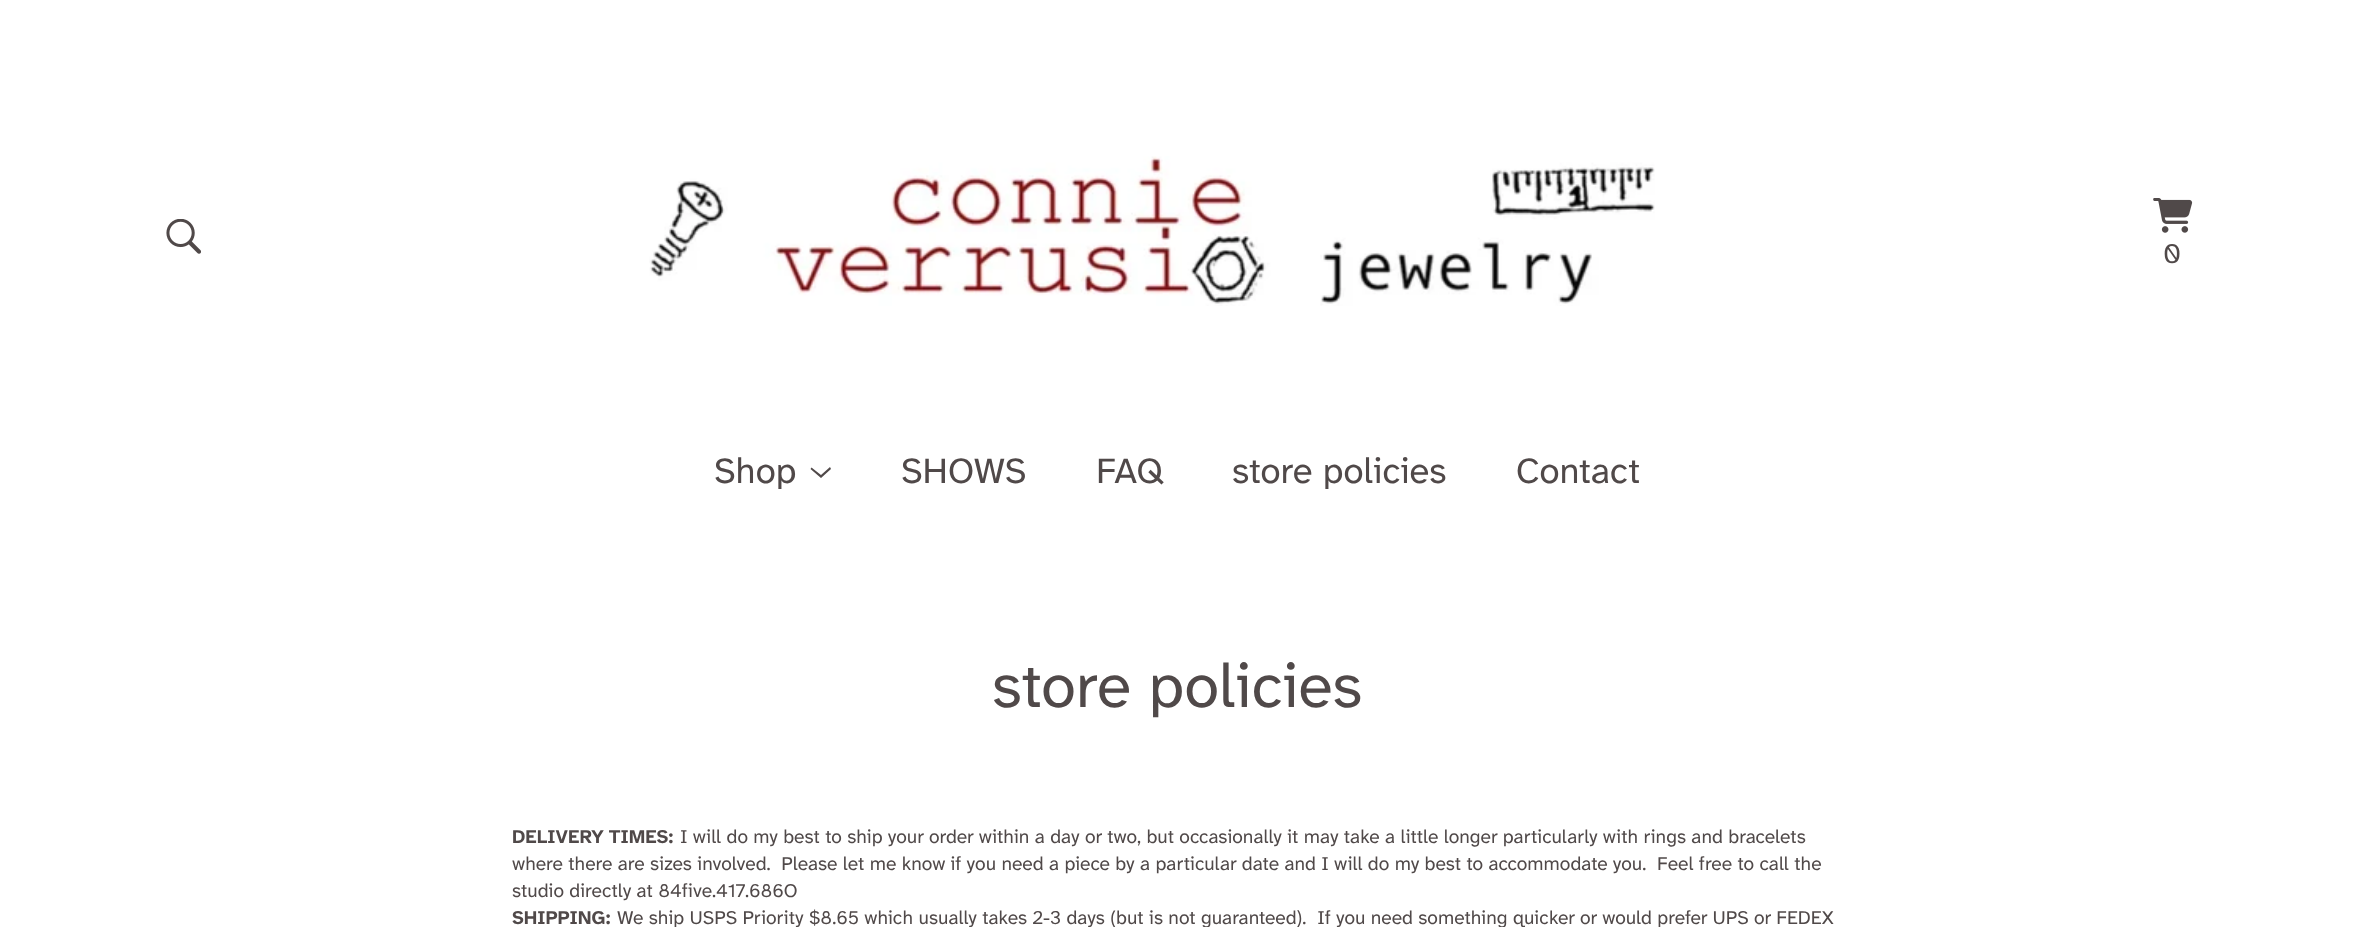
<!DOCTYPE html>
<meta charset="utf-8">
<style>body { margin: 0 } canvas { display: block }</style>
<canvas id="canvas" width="2353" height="927"></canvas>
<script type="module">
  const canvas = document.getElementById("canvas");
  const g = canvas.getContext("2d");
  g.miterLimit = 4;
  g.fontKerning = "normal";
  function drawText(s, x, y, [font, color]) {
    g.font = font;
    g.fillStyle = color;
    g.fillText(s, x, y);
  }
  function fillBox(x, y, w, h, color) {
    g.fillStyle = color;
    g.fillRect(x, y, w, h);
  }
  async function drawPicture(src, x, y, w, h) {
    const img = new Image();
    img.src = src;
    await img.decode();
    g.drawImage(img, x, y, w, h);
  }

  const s1 = ["28px Atkinson Hyperlegible Next", "#504949"];
  const s2 = ["36.5px Atkinson Hyperlegible Next", "#504949"];
  const s3 = ["63px Atkinson Hyperlegible Next", "#504949"];
  const s4 = ["bold 19.25px Atkinson Hyperlegible Next", "#504949"];
  const s5 = ["19.25px Atkinson Hyperlegible Next", "#504949"];

  fillBox(0, 0, 2353, 927, "#FFFFFF");
  await drawPicture("pic1.png", 166, 219, 35, 35);
  await drawPicture("pic2.png", 649, 156, 1006, 150);
  await drawPicture("pic3.png", 2153, 198, 40, 35);
  drawText("0", 2163, 263, s1);
  drawText("Shop", 714, 483, s2);
  g.beginPath();
  g.moveTo(831, 469);
  g.lineTo(821, 478);
  g.lineTo(810.5, 469);
  g.lineTo(811.5, 467.5);
  g.lineTo(821, 475);
  g.lineTo(830, 467);
  g.closePath();
  g.fill();
  drawText("SHOWS", 901, 483, s2);
  drawText("FAQ", 1096, 483, s2);
  drawText("store policies", 1232, 483, s2);
  drawText("Contact", 1516, 483, s2);
  drawText("store policies", 992, 707, s3);
  drawText("DELIVERY TIMES:", 512, 843, s4);
  drawText("I will do my best to ship your order within a day or two, but occasionally it may take a little longer particularly with rings and bracelets", 680, 843, s5);
  drawText("where there are sizes involved.  Please let me know if you need a piece by a particular date and I will do my best to accommodate you.  Feel free to call the", 512, 870, s5);
  drawText("studio directly at 84five.417.686O", 512, 897, s5);
  drawText("SHIPPING:", 512, 924, s4);
  drawText("We ship USPS Priority $8.65 which usually takes 2-3 days (but is not guaranteed).  If you need something quicker or would prefer UPS or FEDEX", 617, 924, s5);
</script>
